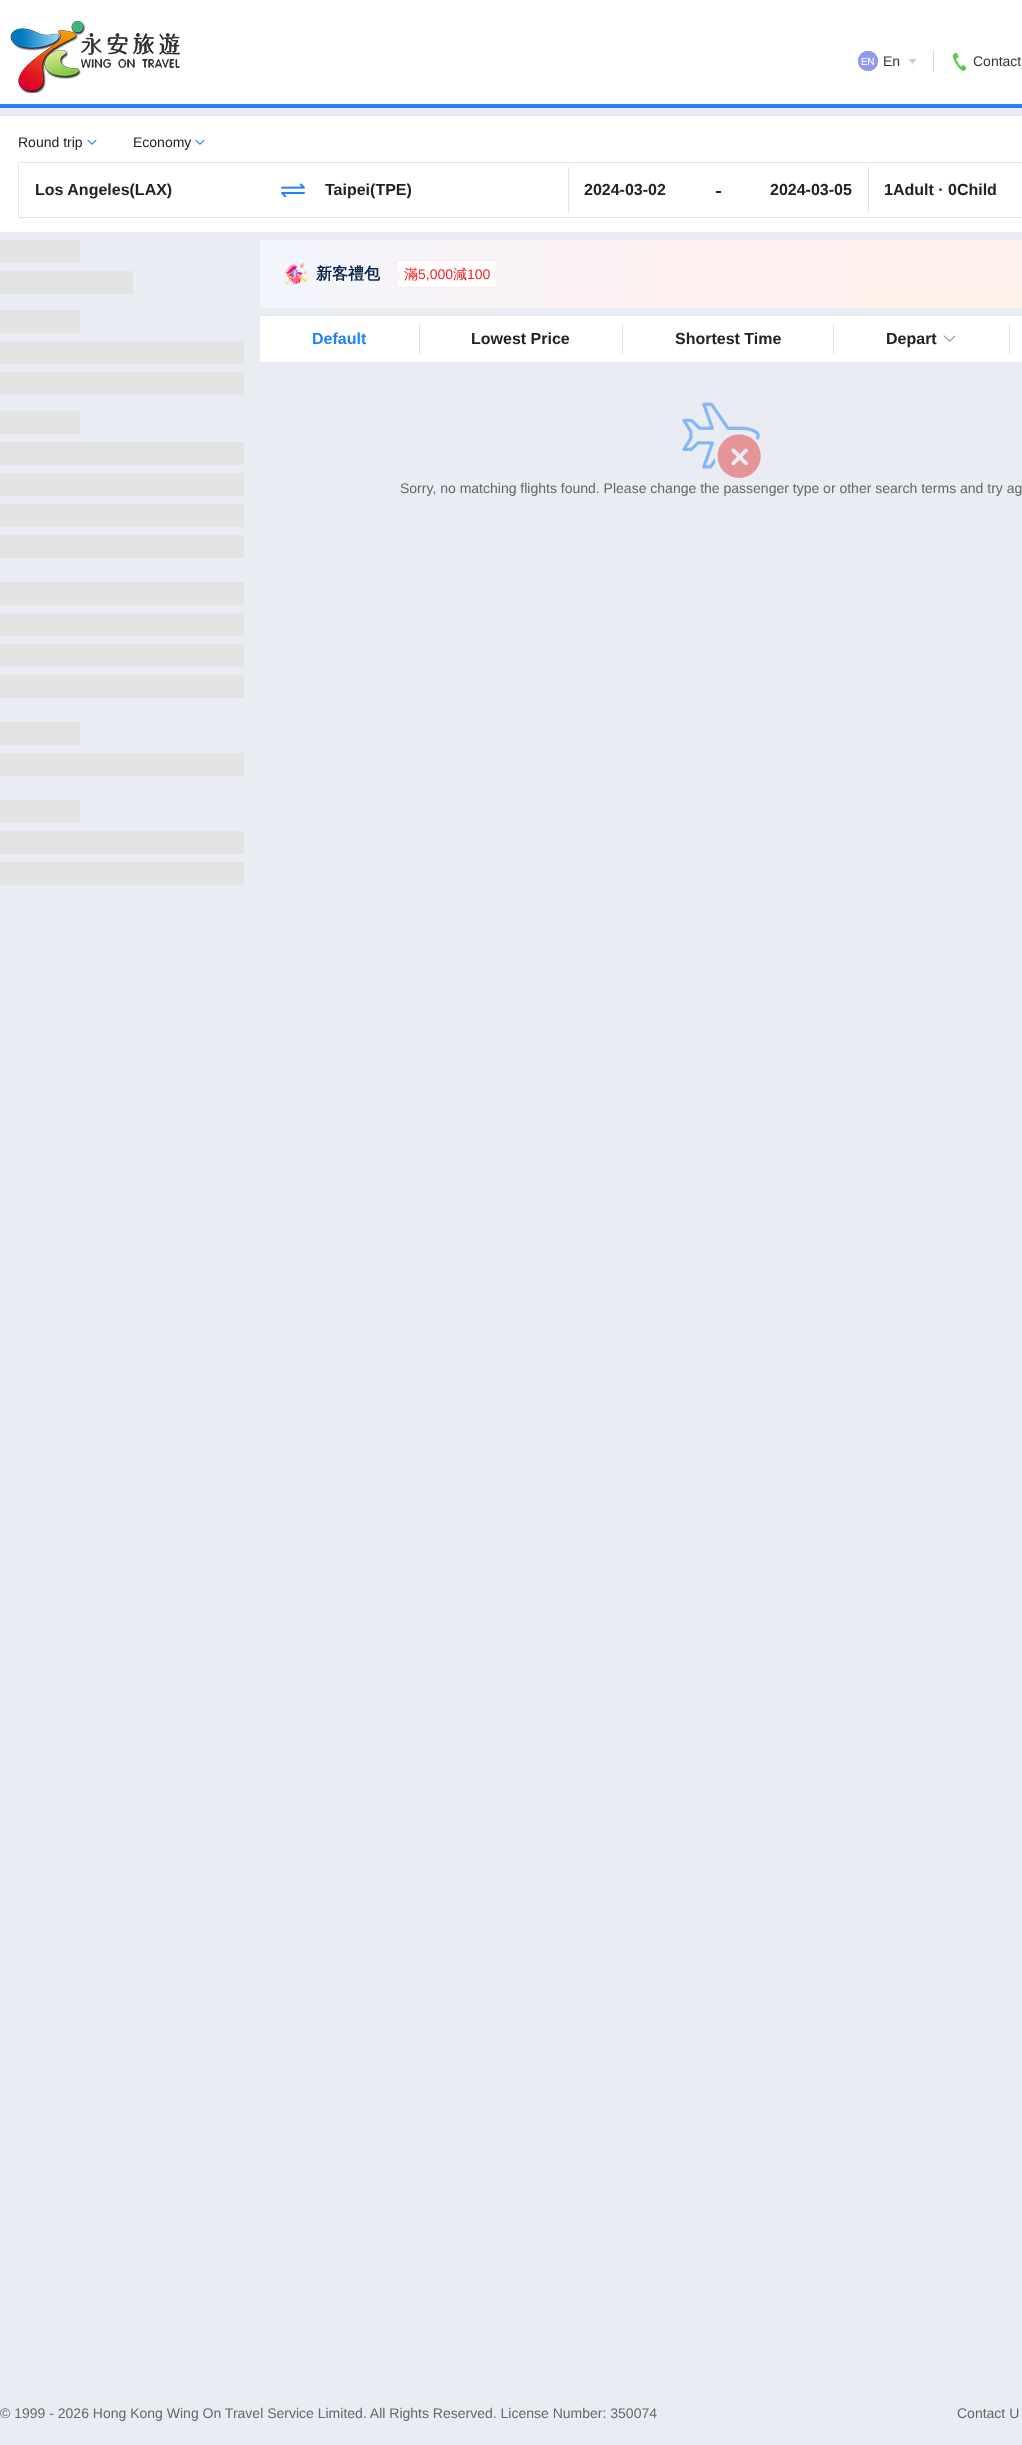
<!DOCTYPE html>
<meta charset="utf-8">
<style>body { margin: 0 } canvas { display: block }</style>
<canvas id="canvas" width="1022" height="2445"></canvas>
<script type="module">
  const canvas = document.getElementById("canvas");
  const g = canvas.getContext("2d");
  g.miterLimit = 4;
  g.fontKerning = "normal";
  function drawText(s, x, y, [font, color]) {
    g.font = font;
    g.fillStyle = color;
    g.fillText(s, x, y);
  }
  function fillBox(x, y, w, h, color) {
    g.fillStyle = color;
    g.fillRect(x, y, w, h);
  }
  async function drawPicture(src, x, y, w, h) {
    const img = new Image();
    img.src = src;
    await img.decode();
    g.drawImage(img, x, y, w, h);
  }
  let gradient;

  const s1 = ["14px Liberation Sans", "#333333"];
  const s2 = ["14px Liberation Sans", "#222222"];
  const s3 = ["bold 16px Liberation Sans", "#222222"];
  const s4 = ["bold 16px WenQuanYi Zen Hei", "#092548"];
  const s5 = ["500 14px WenQuanYi Zen Hei", "#F82222"];
  const s6 = ["14px Liberation Sans", "#F82222"];
  const s7 = ["bold 16px Liberation Sans", "#2182FC"];
  const s8 = ["14px Liberation Sans", "#666666"];

  fillBox(0, 0, 1022, 2445, "#E9ECF3");
  fillBox(0, 0, 1022, 104, "#FFFFFF");
  fillBox(0, 104, 1022, 4, "#2182FC");
  await drawPicture("pic1.png", 10, 20, 170, 73);
  fillBox(933, 50, 1, 22, "#D3DADF");
  await drawPicture("pic2.png", 858, 51, 20, 20);
  drawText("En", 883, 66, s1);
  await drawPicture("pic3.png", 909, 58, 8, 10);
  await drawPicture("pic4.png", 952, 53, 15, 18);
  drawText("Contact", 973, 66, s1);
  fillBox(0, 116, 1022, 116, "#FFFFFF");
  drawText("Round trip", 18, 147, s2);
  await drawPicture("pic5.png", 87, 139, 10, 6);
  drawText("Economy", 133, 147, s2);
  await drawPicture("pic5.png", 195, 139, 10, 6);
  g.beginPath();
  g.roundRect(18.5, 162.5, 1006, 55, 1.5);
  g.strokeStyle = "#E3E3E3";
  g.stroke();
  drawText("Los Angeles(LAX)", 35, 195, s3);
  await drawPicture("pic6.png", 281, 183, 24, 15);
  drawText("Taipei(TPE)", 325, 195, s3);
  fillBox(568, 167, 1, 46, "#E3E3E3");
  drawText("2024-03-02", 584, 195, s3);
  fillBox(716, 191, 5, 2, "#222222");
  drawText("2024-03-05", 770, 195, s3);
  fillBox(868, 167, 1, 46, "#E3E3E3");
  drawText("1Adult · 0Child", 884, 195, s3);
  fillBox(0, 240, 80, 23, "#E3E3E3");
  fillBox(0, 271, 133, 23, "#E3E3E3");
  fillBox(0, 310, 80, 23, "#E3E3E3");
  fillBox(0, 341, 244, 23, "#E3E3E3");
  fillBox(0, 372, 244, 23, "#E3E3E3");
  fillBox(0, 411, 80, 23, "#E3E3E3");
  fillBox(0, 442, 244, 23, "#E3E3E3");
  fillBox(0, 473, 244, 23, "#E3E3E3");
  fillBox(0, 504, 244, 23, "#E3E3E3");
  fillBox(0, 535, 244, 23, "#E3E3E3");
  fillBox(0, 582, 244, 23, "#E3E3E3");
  fillBox(0, 613, 244, 23, "#E3E3E3");
  fillBox(0, 644, 244, 23, "#E3E3E3");
  fillBox(0, 675, 244, 23, "#E3E3E3");
  fillBox(0, 722, 80, 23, "#E3E3E3");
  fillBox(0, 753, 244, 23, "#E3E3E3");
  fillBox(0, 800, 80, 23, "#E3E3E3");
  fillBox(0, 831, 244, 23, "#E3E3E3");
  fillBox(0, 862, 244, 23, "#E3E3E3");
  gradient = g.createLinearGradient(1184, 274, 243, 274);
  gradient.addColorStop(0, "#FEF4ED");
  gradient.addColorStop(0.48, "#FFF0EF");
  gradient.addColorStop(1, "#F2F6FE");
  g.fillStyle = gradient;
  g.beginPath();
  g.roundRect(260, 240, 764, 68, 2);
  g.fill();
  await drawPicture("pic7.png", 284, 262, 24, 23);
  drawText("新客禮包", 316, 279, s4);
  await drawPicture("pic8.png", 396, 260, 102, 28);
  await drawPicture("pic9.png", 400, 260, 94, 28);
  drawText("滿", 404, 279, s5);
  drawText("5,000", 418, 279, s6);
  drawText("減", 453, 279, s5);
  drawText("100", 467, 279, s6);
  fillBox(260, 316, 762, 46, "#FFFFFF");
  drawText("Default", 312, 344, s7);
  fillBox(419, 324, 1, 30, "#E3E3E3");
  drawText("Lowest Price", 471, 344, s3);
  fillBox(622, 324, 1, 30, "#E3E3E3");
  drawText("Shortest Time", 675, 344, s3);
  fillBox(833, 324, 1, 30, "#E3E3E3");
  drawText("Depart", 886, 344, s3);
  await drawPicture("pic10.png", 943, 335, 13, 7);
  fillBox(1009, 324, 1, 30, "#E3E3E3");
  await drawPicture("pic11.png", 682, 402, 79, 76);
  drawText("Sorry, no matching flights found. Please change the passenger type or other search terms and try ag", 400, 493, s8);
  drawText("© 1999 - 2026 Hong Kong Wing On Travel Service Limited. All Rights Reserved. License Number: 350074", 0, 2418, s8);
  drawText("Contact U", 957, 2418, s8);
</script>
